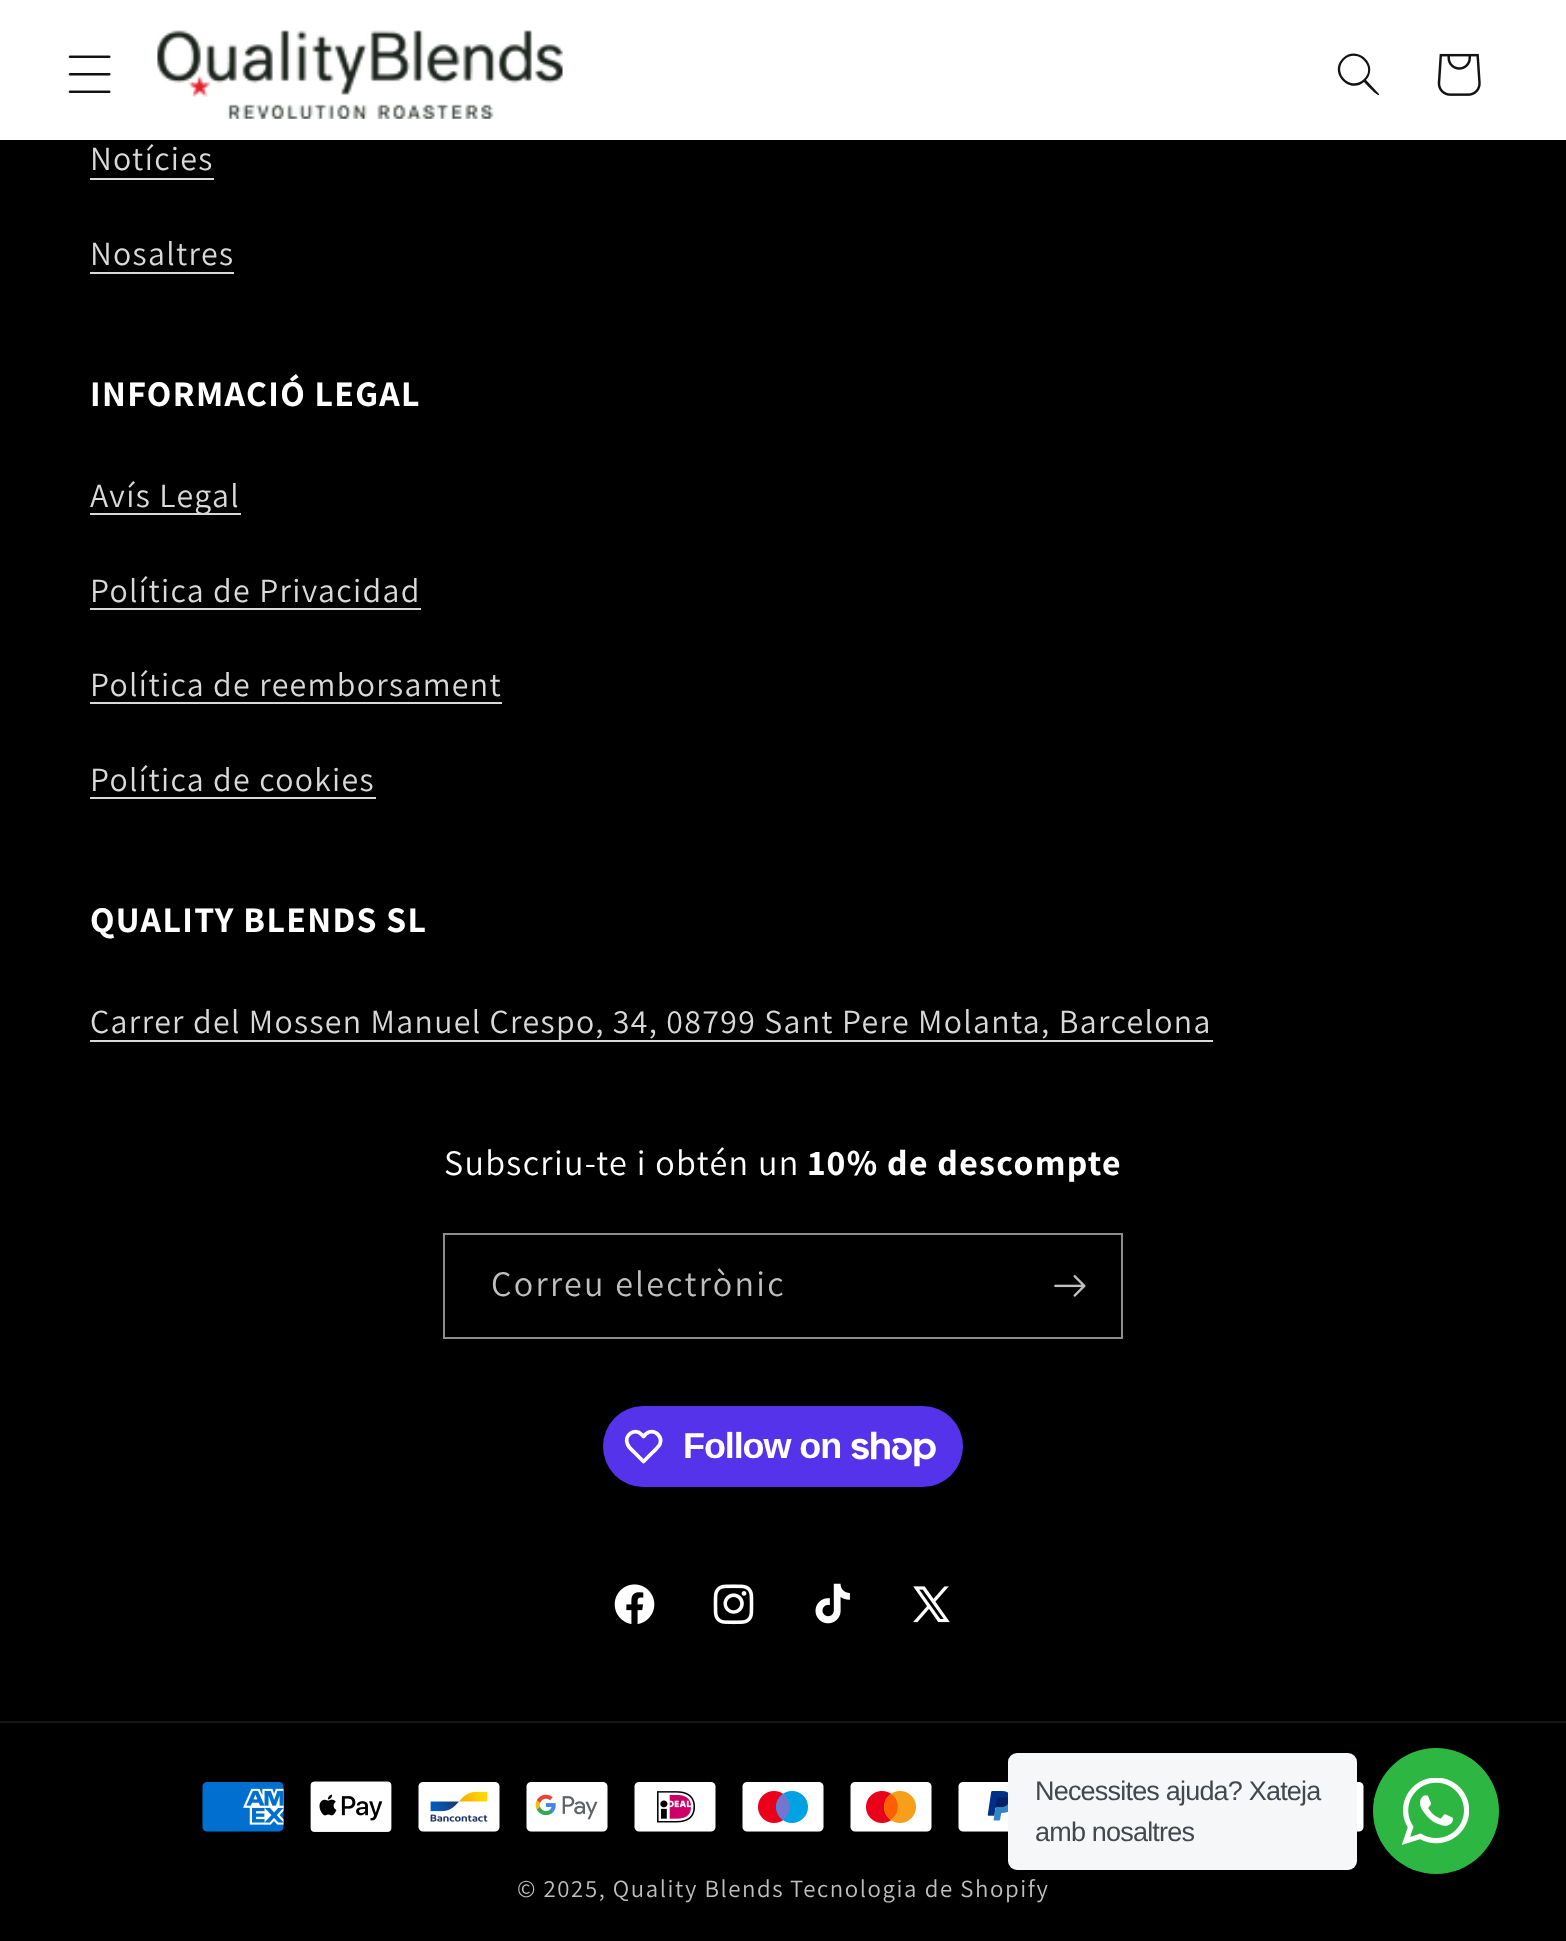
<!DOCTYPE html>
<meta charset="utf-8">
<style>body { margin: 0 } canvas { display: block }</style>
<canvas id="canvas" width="1566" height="1941"></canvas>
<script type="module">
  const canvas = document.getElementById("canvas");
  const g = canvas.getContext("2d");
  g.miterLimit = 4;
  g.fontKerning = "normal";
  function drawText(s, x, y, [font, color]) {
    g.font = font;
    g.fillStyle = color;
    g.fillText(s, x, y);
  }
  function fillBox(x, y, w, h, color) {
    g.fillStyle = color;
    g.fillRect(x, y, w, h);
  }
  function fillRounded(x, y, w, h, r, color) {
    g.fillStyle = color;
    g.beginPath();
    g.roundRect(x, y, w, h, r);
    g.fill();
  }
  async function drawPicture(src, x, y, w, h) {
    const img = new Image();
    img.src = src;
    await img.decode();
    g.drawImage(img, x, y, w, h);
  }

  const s1 = ["33.75px Assistant", "#D9D9D9"];
  const s2 = ["bold 36px Assistant", "#FFFFFF"];
  const s3 = ["36px Assistant", "#FFFFFF"];
  const s4 = ["36px Assistant", "#BFBFBF"];
  const s5 = ["bold 36px Liberation Sans", "#FFFFFF"];
  const s6 = ["24.75px Assistant", "#BFBFBF"];
  const s7 = ["27px Liberation Sans", "#43474E"];

  fillBox(0, 0, 1566, 1941, "#000000");
  fillBox(0, 0, 1566, 140, "#FFFFFF");
  await drawPicture("pic1.png", 68, 55, 43, 38);
  await drawPicture("pic2.png", 157, 30, 406, 89);
  g.fillStyle = "#121212";
  g.beginPath();
  g.moveTo(1364, 79);
  g.bezierCurveTo(1351, 92, 1332, 73, 1344, 60);
  g.bezierCurveTo(1357, 47, 1377, 67, 1364, 79);
  g.closePath();
  g.moveTo(1364, 82);
  g.bezierCurveTo(1349, 95, 1328, 72, 1343, 58);
  g.bezierCurveTo(1357, 44, 1380, 65, 1366, 80);
  g.lineTo(1379, 94);
  g.lineTo(1379, 95);
  g.bezierCurveTo(1377, 96, 1366, 84, 1364, 82);
  g.closePath();
  g.fill("evenodd");
  await drawPicture("pic3.png", 1437, 53, 44, 43);
  g.letterSpacing = "1.35px";
  drawText("Notícies", 90, 170, s1);
  fillBox(90, 178, 124, 2, "#D9D9D9");
  drawText("Nosaltres", 90, 265, s1);
  fillBox(90, 272, 144, 2, "#D9D9D9");
  drawText("INFORMACIÓ LEGAL", 90, 406, s2);
  fillBox(90, 513, 151, 2, "#D9D9D9");
  drawText("Avís Legal", 90, 507, s1);
  drawText("Política de Privacidad", 90, 602, s1);
  fillBox(90, 608, 331, 2, "#D9D9D9");
  drawText("Política de reemborsament", 90, 696, s1);
  fillBox(90, 702, 412, 2, "#D9D9D9");
  drawText("Política de cookies", 90, 791, s1);
  fillBox(90, 797, 286, 2, "#D9D9D9");
  drawText("QUALITY BLENDS SL", 90, 932, s2);
  drawText("Carrer del Mossen Manuel Crespo, 34, 08799 Sant Pere Molanta, Barcelona", 90, 1033, s1);
  fillBox(90, 1040, 1123, 2, "#D9D9D9");
  drawText("Subscriu-te i obtén un", 444, 1175, s3);
  drawText("10% de descompte", 808, 1175, s2);
  g.strokeStyle = "#8C8C8C";
  g.lineWidth = 2;
  g.strokeRect(444, 1234, 678, 104);
  g.letterSpacing = "2.25px";
  drawText("Correu electrònic", 491, 1296, s4);
  await drawPicture("pic4.png", 1054, 1275, 32, 22);
  fillRounded(603, 1406, 360, 81, 40.5, "#5433EB");
  g.beginPath();
  g.moveTo(641.5, 1434.5);
  g.lineTo(643.5, 1436.5);
  g.bezierCurveTo(645, 1434.5, 646.5, 1433, 649, 1432);
  g.bezierCurveTo(656, 1430, 662.5, 1437, 660, 1444);
  g.bezierCurveTo(658.5, 1447, 655.5, 1449.5, 653, 1452);
  g.lineTo(643.5, 1461.5);
  g.lineTo(634, 1452);
  g.bezierCurveTo(631.5, 1449.5, 628.5, 1447.5, 627.5, 1444);
  g.bezierCurveTo(623.5, 1435, 635, 1427.5, 641.5, 1434.5);
  g.closePath();
  g.strokeStyle = "#FFFFFF";
  g.lineWidth = 3.8;
  g.lineJoin = "round";
  g.stroke();
  g.letterSpacing = "-1.1px";
  drawText("Follow on", 683, 1458, s5);
  await drawPicture("pic5.png", 851, 1431, 85, 36);
  await drawPicture("pic6.png", 614, 1584, 41, 40);
  await drawPicture("pic7.png", 713, 1584, 41, 41);
  await drawPicture("pic8.png", 815, 1583, 35, 41);
  await drawPicture("pic9.png", 913, 1586, 37, 37);
  fillBox(0, 1721, 1566, 2, "#141414");
  await drawPicture("pic10.png", 202, 1782, 82, 50);
  await drawPicture("pic11.png", 310, 1781, 82, 51);
  await drawPicture("pic12.png", 418, 1782, 82, 50);
  await drawPicture("pic13.png", 526, 1782, 82, 50);
  await drawPicture("pic14.png", 634, 1782, 82, 50);
  await drawPicture("pic15.png", 742, 1782, 82, 50);
  await drawPicture("pic16.png", 850, 1782, 82, 50);
  await drawPicture("pic17.png", 958, 1782, 50, 50);
  await drawPicture("pic18.png", 1357, 1782, 7, 50);
  g.letterSpacing = "1.6px";
  drawText("© 2025, Quality Blends", 517, 1897, s6);
  drawText("Tecnologia de Shopify", 790, 1897, s6);
  fillRounded(1008, 1753, 349, 117, 9, "#F5F7F9");
  g.letterSpacing = "-0.8px";
  drawText("Necessites ajuda? Xateja", 1035, 1800, s7);
  drawText("amb nosaltres", 1035, 1841, s7);
  g.fillStyle = "#2DB742";
  g.beginPath();
  g.arc(1436, 1811, 63, 0, Math.PI * 2);
  g.fill();
  await drawPicture("pic19.png", 1402, 1778, 67, 67);
</script>
